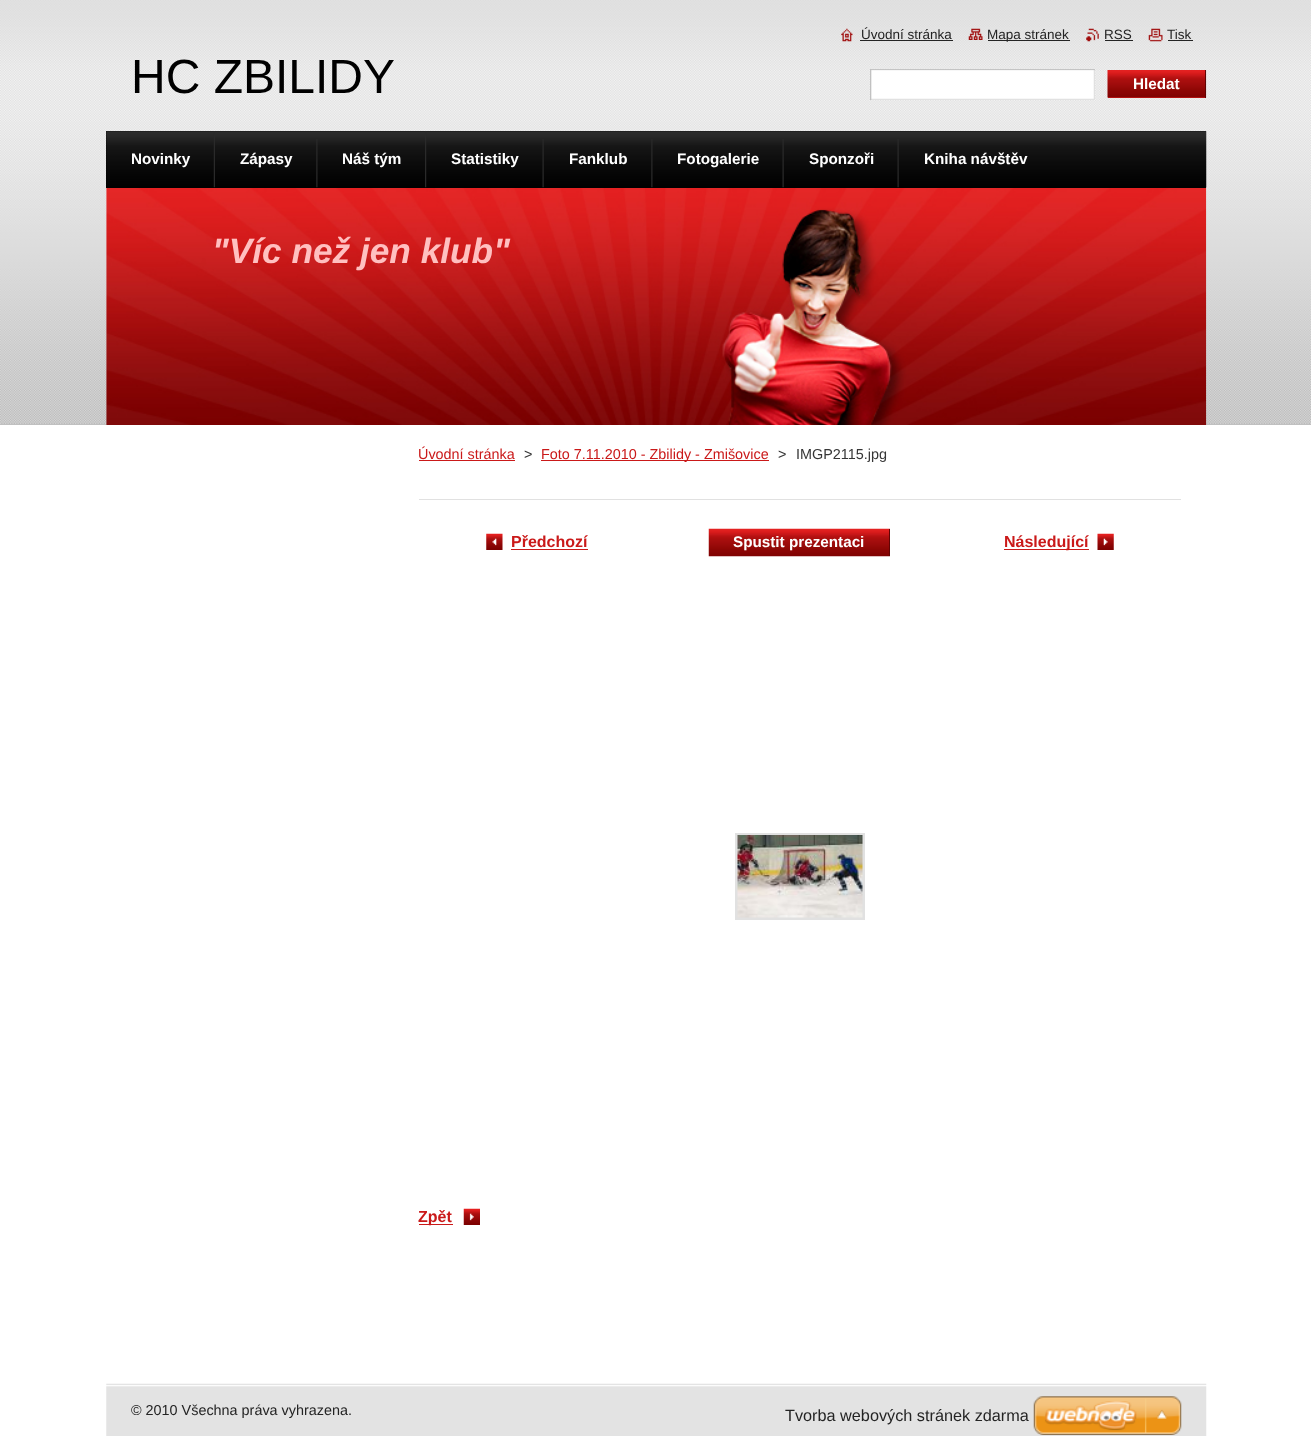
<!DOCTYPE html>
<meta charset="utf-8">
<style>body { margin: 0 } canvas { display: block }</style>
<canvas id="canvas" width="1311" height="1436"></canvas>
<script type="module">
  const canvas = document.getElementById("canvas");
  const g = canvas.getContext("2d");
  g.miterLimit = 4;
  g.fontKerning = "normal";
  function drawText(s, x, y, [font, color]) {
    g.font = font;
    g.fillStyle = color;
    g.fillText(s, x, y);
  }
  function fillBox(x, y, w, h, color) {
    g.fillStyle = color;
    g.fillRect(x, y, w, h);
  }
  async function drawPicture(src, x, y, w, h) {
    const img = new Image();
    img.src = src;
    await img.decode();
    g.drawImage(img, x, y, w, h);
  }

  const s1 = ["13.5px Liberation Sans", "#242424"];
  const s2 = ["48px Liberation Sans", "#000000"];
  const s3 = ["bold 15.25px Liberation Sans", "#FFFFFF"];
  const s4 = ["italic bold 35.25px Liberation Sans", "#FFC0C0"];
  const s5 = ["14.4px Liberation Sans", "#CA1919"];
  const s6 = ["14.4px Liberation Sans", "#363636"];
  const s7 = ["bold 16px Liberation Sans", "#CA1919"];
  const s8 = ["14.4px Liberation Sans", "#242424"];
  const s9 = ["16.25px Liberation Sans", "#242424"];

  fillBox(0, 0, 1311, 1436, "#FFFFFF");
  await drawPicture("pic1.png", 0, 0, 1311, 425);
  await drawPicture("pic2.png", 841, 28, 12, 14);
  drawText("Úvodní stránka", 861, 39, s1);
  fillBox(860, 40, 93, 1, "#242424");
  await drawPicture("pic3.png", 968, 28, 15, 12);
  fillBox(988, 40, 82, 1, "#242424");
  drawText("Mapa stránek", 987, 39, s1);
  await drawPicture("pic4.png", 1086, 28, 13, 14);
  drawText("RSS", 1104, 39, s1);
  fillBox(1105, 40, 28, 1, "#242424");
  await drawPicture("pic5.png", 1148, 28, 15, 14);
  drawText("Tisk", 1167, 39, s1);
  fillBox(1168, 40, 25, 1, "#242424");
  drawText("HC ZBILIDY", 131, 93, s2);
  await drawPicture("pic6.png", 870, 69, 225, 31);
  fillBox(1108, 97, 97, 1, "#E52020");
  await drawPicture("pic7.png", 1107, 70, 100, 28);
  fillBox(1205, 70, 1, 28, "#610303");
  drawText("Hledat", 1133, 89, s3);
  fillBox(106, 131, 1100, 57, "#000000");
  await drawPicture("pic8.png", 106, 131, 1101, 57);
  await drawPicture("pic9.png", 213, 131, 2, 57);
  drawText("Novinky", 131, 164, s3);
  await drawPicture("pic10.png", 316, 139, 2, 49);
  drawText("Zápasy", 240, 164, s3);
  await drawPicture("pic11.png", 425, 131, 2, 57);
  drawText("Náš tým", 342, 164, s3);
  await drawPicture("pic12.png", 542, 139, 2, 49);
  drawText("Statistiky", 451, 164, s3);
  await drawPicture("pic10.png", 651, 139, 2, 49);
  drawText("Fanklub", 569, 164, s3);
  await drawPicture("pic12.png", 782, 139, 2, 49);
  drawText("Fotogalerie", 677, 164, s3);
  await drawPicture("pic12.png", 897, 139, 2, 49);
  drawText("Sponzoři", 809, 164, s3);
  drawText("Kniha návštěv", 924, 164, s3);
  await drawPicture("pic13.png", 106, 188, 1101, 237);
  drawText("\"Víc než jen klub\"", 212, 263, s4);
  drawText("Úvodní stránka", 418, 459, s5);
  fillBox(419, 460, 96, 1, "#CA1919");
  drawText(">", 524, 459, s6);
  fillBox(541, 460, 228, 1, "#CA1919");
  drawText("Foto 7.11.2010 - Zbilidy - Zmišovice", 541, 459, s5);
  drawText(">", 778, 459, s6);
  drawText("IMGP2115.jpg", 796, 459, s6);
  fillBox(419, 499, 762, 1, "#E1E1E1");
  await drawPicture("pic14.png", 486, 533, 17, 17);
  drawText("Předchozí", 511, 547, s7);
  fillBox(511, 549, 77, 1, "#CA1919");
  await drawPicture("pic15.png", 708, 528, 182, 29);
  drawText("Spustit prezentaci", 733, 547, s3);
  fillBox(889, 529, 1, 27, "#610303");
  await drawPicture("pic16.png", 1097, 533, 17, 17);
  fillBox(1004, 549, 85, 1, "#CA1919");
  drawText("Následující", 1004, 547, s7);
  g.strokeStyle = "#E1E1E1";
  g.lineWidth = 3;
  g.strokeRect(736.5, 834.5, 127, 84);
  await drawPicture("pic17.png", 737, 835, 126, 83);
  await drawPicture("pic18.png", 463, 1208, 17, 17);
  fillBox(419, 1224, 34, 1, "#CA1919");
  drawText("Zpět", 418, 1222, s7);
  await drawPicture("pic19.png", 106, 1383, 1101, 53);
  drawText("© 2010 Všechna práva vyhrazena.", 131, 1415, s8);
  drawText("Tvorba webových stránek zdarma", 785, 1421, s9);
  await drawPicture("pic20.png", 1033, 1396, 149, 39);
</script>
